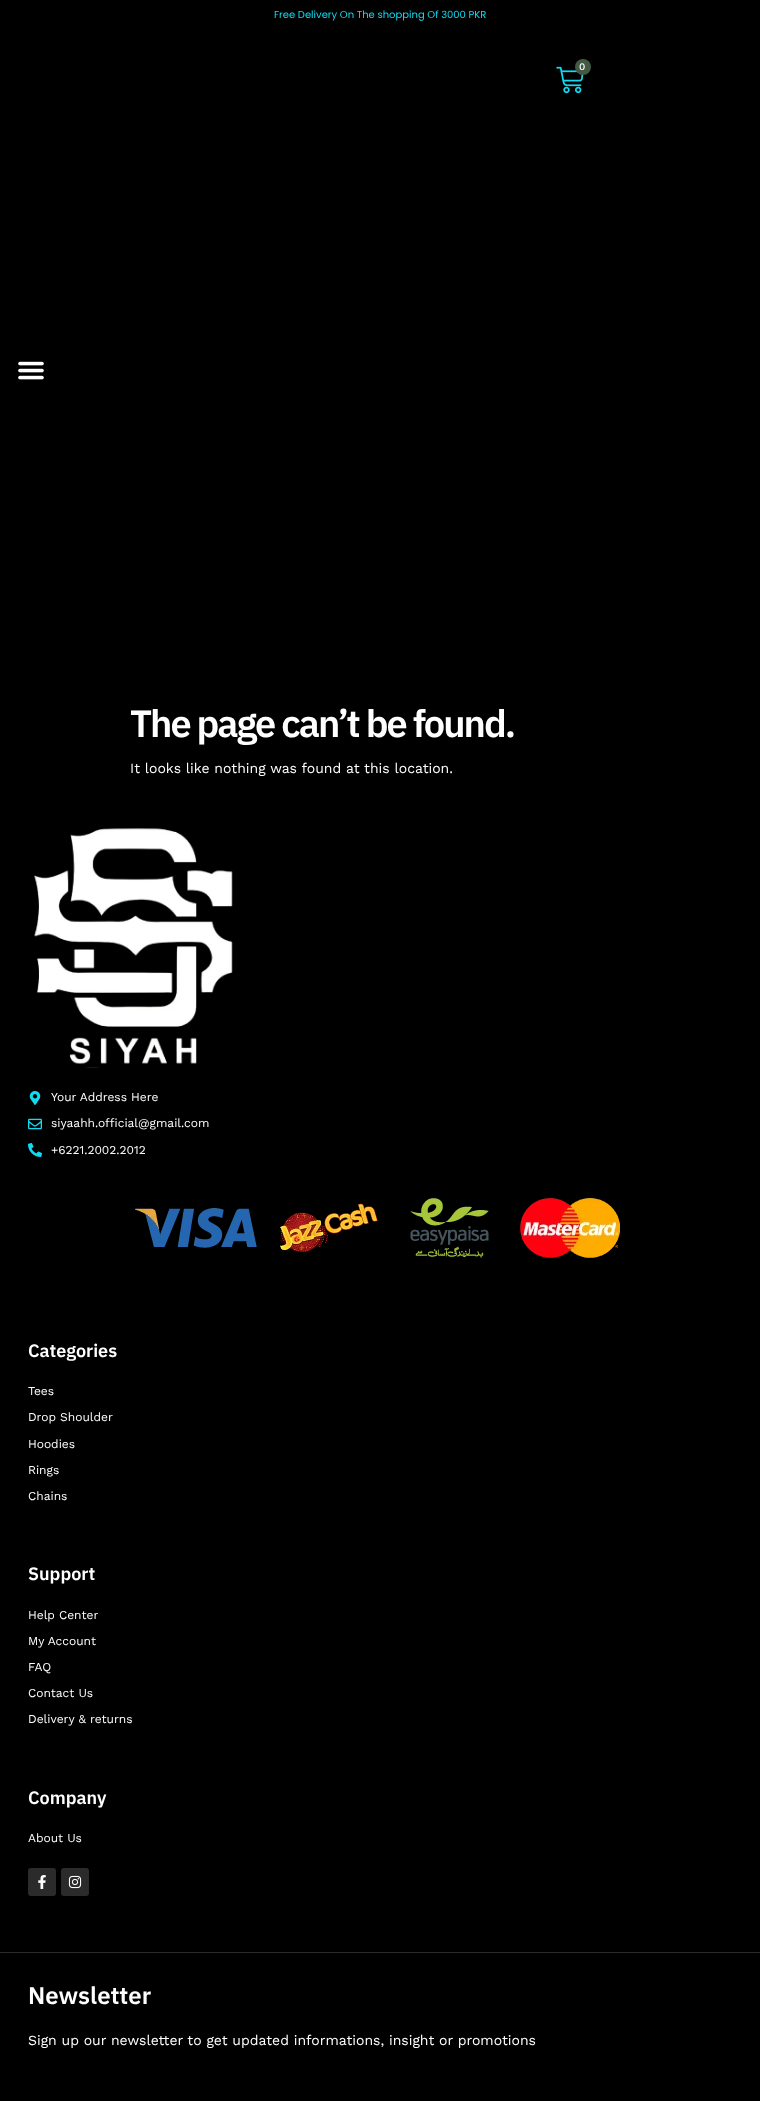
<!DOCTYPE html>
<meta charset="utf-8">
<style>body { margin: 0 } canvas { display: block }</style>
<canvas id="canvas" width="760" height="2101"></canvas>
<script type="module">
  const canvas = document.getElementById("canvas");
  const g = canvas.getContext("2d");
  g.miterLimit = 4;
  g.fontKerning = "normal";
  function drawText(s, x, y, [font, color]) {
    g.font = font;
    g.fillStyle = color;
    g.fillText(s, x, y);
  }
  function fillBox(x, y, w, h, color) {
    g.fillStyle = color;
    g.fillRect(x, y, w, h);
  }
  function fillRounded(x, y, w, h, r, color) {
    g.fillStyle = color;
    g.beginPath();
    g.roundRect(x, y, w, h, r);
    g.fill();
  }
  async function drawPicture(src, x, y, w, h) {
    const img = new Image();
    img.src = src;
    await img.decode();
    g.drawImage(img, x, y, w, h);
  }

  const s1 = ["10px Poppins", "#0FDBF2"];
  const s2 = ["500 10px Work Sans", "#FFFFFF"];
  const s3 = ["600 38px IBM Plex Sans", "#FFFFFF"];
  const s4 = ["14px Work Sans", "#FFFFFF"];
  const s5 = ["12px Work Sans", "#FFFFFF"];
  const s6 = ["600 18px IBM Plex Sans", "#FFFFFF"];
  const s7 = ["600 24px IBM Plex Sans", "#FFFFFF"];

  fillBox(0, 0, 760, 2101, "#000000");
  drawText("Free Delivery On The shopping Of 3000 PKR", 274, 18, s1);
  await drawPicture("pic1.png", 556, 66, 28, 28);
  g.fillStyle = "#425A44";
  g.beginPath();
  g.arc(583, 67, 8, 0, Math.PI * 2);
  g.fill();
  drawText("0", 579, 70, s2);
  await drawPicture("pic2.png", 18, 361, 26, 19);
  g.letterSpacing = "-2px";
  drawText("The page can’t be found.", 130, 737, s3);
  g.letterSpacing = "0px";
  drawText("It looks like nothing was found at this location.", 130, 773, s4);
  await drawPicture("pic3.png", 34, 828, 199, 240);
  await drawPicture("pic4.png", 29, 1091, 12, 14);
  drawText("Your Address Here", 51, 1101, s5);
  await drawPicture("pic5.png", 28, 1118, 14, 12);
  drawText("siyaahh.official@gmail.com", 51, 1127, s5);
  await drawPicture("pic6.png", 28, 1143, 14, 14);
  drawText("+6221.2002.2012", 51, 1154, s5);
  await drawPicture("pic7.png", 135, 1198, 485, 60);
  drawText("Categories", 28, 1357, s6);
  drawText("Tees", 28, 1395, s5);
  drawText("Drop Shoulder", 28, 1421, s5);
  drawText("Hoodies", 28, 1448, s5);
  drawText("Rings", 28, 1474, s5);
  drawText("Chains", 28, 1500, s5);
  drawText("Support", 28, 1580, s6);
  drawText("Help Center", 28, 1619, s5);
  drawText("My Account", 28, 1645, s5);
  drawText("FAQ", 28, 1671, s5);
  drawText("Contact Us", 28, 1697, s5);
  drawText("Delivery & returns", 28, 1723, s5);
  drawText("Company", 28, 1804, s6);
  drawText("About Us", 28, 1842, s5);
  fillRounded(28, 1868, 28, 28, 3, "#2B2B2B");
  await drawPicture("pic8.png", 38, 1875, 8, 14);
  fillRounded(61, 1868, 28, 28, 3, "#2B2B2B");
  await drawPicture("pic9.png", 68, 1875, 14, 14);
  fillBox(0, 1952, 760, 1, "#2B2B2B");
  drawText("Newsletter", 28, 2004, s7);
  drawText("Sign up our newsletter to get updated informations, insight or promotions", 28, 2045, s4);
</script>
